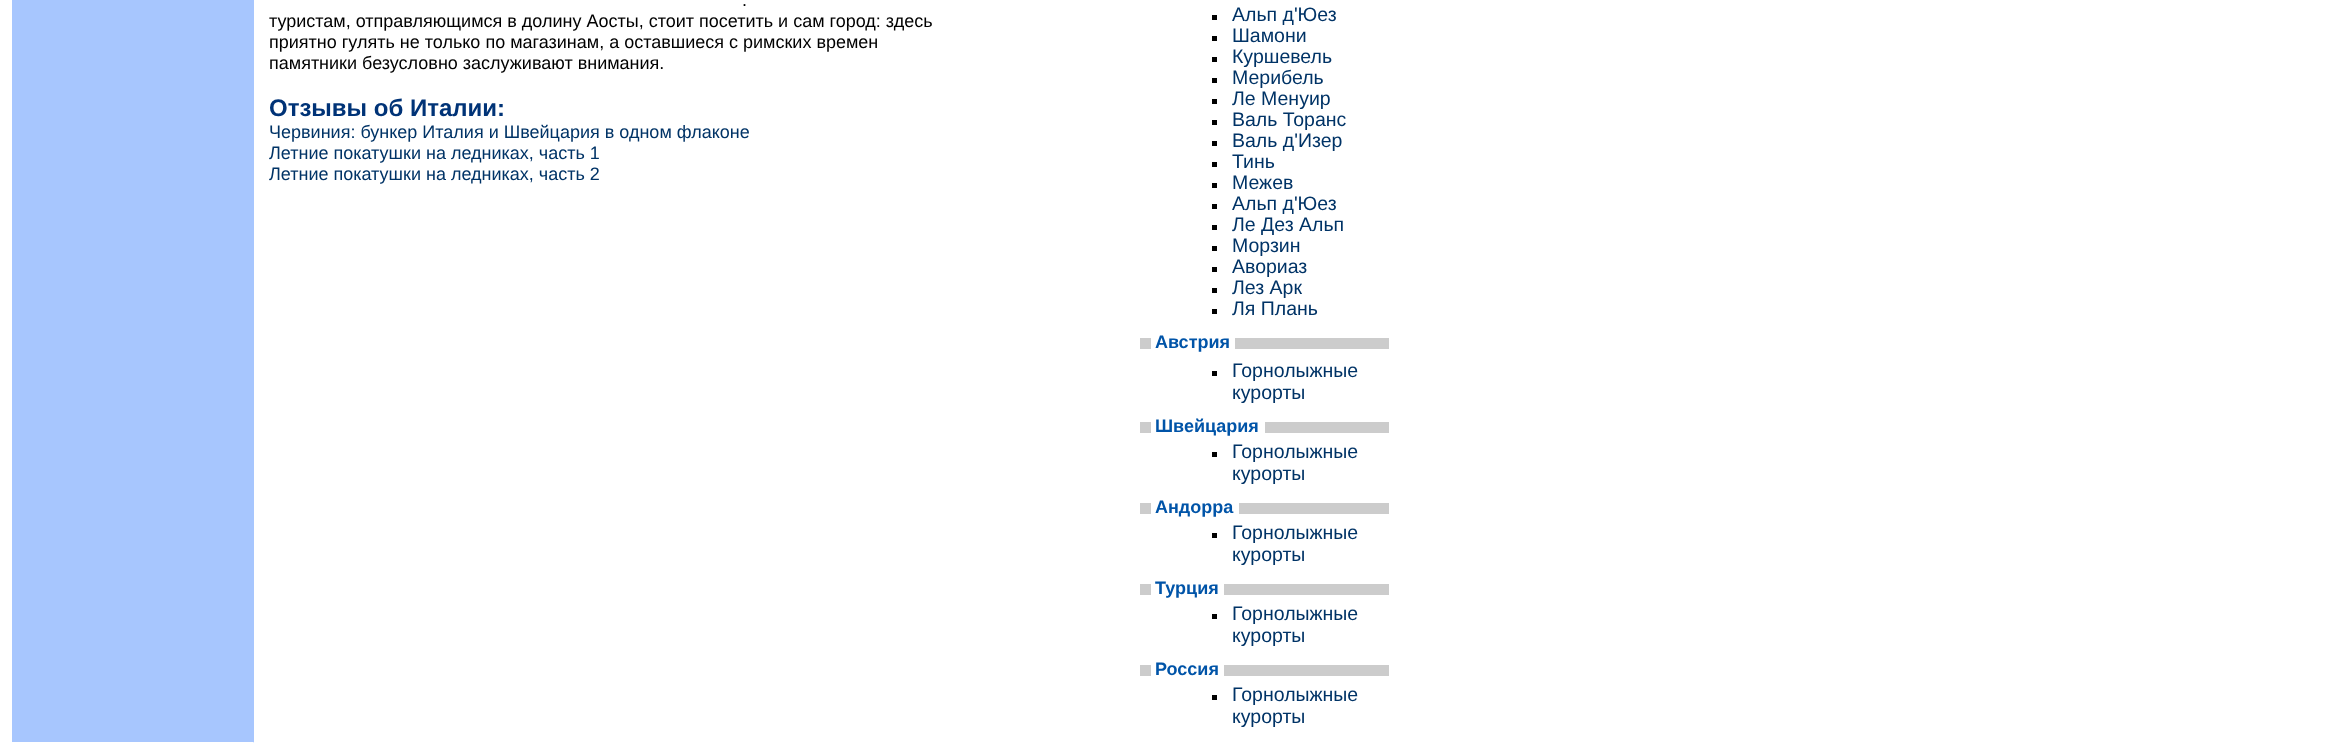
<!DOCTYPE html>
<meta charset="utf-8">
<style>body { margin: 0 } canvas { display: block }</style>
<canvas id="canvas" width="2330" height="747"></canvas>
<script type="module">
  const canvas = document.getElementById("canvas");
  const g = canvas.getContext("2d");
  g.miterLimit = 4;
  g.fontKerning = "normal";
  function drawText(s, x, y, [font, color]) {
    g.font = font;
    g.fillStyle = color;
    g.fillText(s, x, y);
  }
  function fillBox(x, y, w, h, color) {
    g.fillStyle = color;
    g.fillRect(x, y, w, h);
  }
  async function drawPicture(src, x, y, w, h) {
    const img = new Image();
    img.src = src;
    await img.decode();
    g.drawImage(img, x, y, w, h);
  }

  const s1 = ["18px Liberation Sans", "#000000"];
  const s2 = ["bold 24px Liberation Sans", "#003377"];
  const s3 = ["18px Liberation Sans", "#003366"];
  const s4 = ["19.5px Liberation Sans", "#003366"];
  const s5 = ["bold 18px Liberation Sans", "#0054A8"];

  fillBox(0, 0, 2330, 747, "#FFFFFF");
  fillBox(12, 0, 242, 742, "#A7C6FE");
  drawText(".", 742, 6, s1);
  drawText("туристам, отправляющимся в долину Аосты, стоит посетить и сам город: здесь", 269, 27, s1);
  drawText("приятно гулять не только по магазинам, а оставшиеся с римских времен", 269, 48, s1);
  drawText("памятники безусловно заслуживают внимания.", 269, 69, s1);
  drawText("Отзывы об Италии:", 269, 116, s2);
  drawText("Червиния: бункер Италия и Швейцария в одном флаконе", 269, 138, s3);
  drawText("Летние покатушки на ледниках, часть 1", 269, 159, s3);
  drawText("Летние покатушки на ледниках, часть 2", 269, 180, s3);
  fillBox(1212, 15, 5, 5, "#000000");
  drawText("Альп д'Юез", 1232, 21, s4);
  fillBox(1212, 36, 5, 5, "#000000");
  drawText("Шамони", 1232, 42, s4);
  fillBox(1212, 57, 5, 5, "#000000");
  drawText("Куршевель", 1232, 63, s4);
  fillBox(1212, 78, 5, 5, "#000000");
  drawText("Мерибель", 1232, 84, s4);
  fillBox(1212, 99, 5, 5, "#000000");
  drawText("Ле Менуир", 1232, 105, s4);
  fillBox(1212, 120, 5, 5, "#000000");
  drawText("Валь Торанс", 1232, 126, s4);
  fillBox(1212, 141, 5, 5, "#000000");
  drawText("Валь д'Изер", 1232, 147, s4);
  fillBox(1212, 162, 5, 5, "#000000");
  drawText("Тинь", 1232, 168, s4);
  fillBox(1212, 183, 5, 5, "#000000");
  drawText("Межев", 1232, 189, s4);
  fillBox(1212, 204, 5, 5, "#000000");
  drawText("Альп д'Юез", 1232, 210, s4);
  fillBox(1212, 225, 5, 5, "#000000");
  drawText("Ле Дез Альп", 1232, 231, s4);
  fillBox(1212, 246, 5, 5, "#000000");
  drawText("Морзин", 1232, 252, s4);
  fillBox(1212, 267, 5, 5, "#000000");
  drawText("Авориаз", 1232, 273, s4);
  fillBox(1212, 288, 5, 5, "#000000");
  drawText("Лез Арк", 1232, 294, s4);
  fillBox(1212, 309, 5, 5, "#000000");
  drawText("Ля Плань", 1232, 315, s4);
  fillBox(1140, 338, 249, 11, "#CCCCCC");
  fillBox(1151, 338, 84, 11, "#FFFFFF");
  drawText("Австрия", 1155, 348, s5);
  fillBox(1212, 371, 5, 5, "#000000");
  drawText("Горнолыжные", 1232, 377, s4);
  drawText("курорты", 1232, 399, s4);
  fillBox(1140, 422, 249, 11, "#CCCCCC");
  fillBox(1151, 422, 114, 11, "#FFFFFF");
  drawText("Швейцария", 1155, 432, s5);
  fillBox(1212, 452, 5, 5, "#000000");
  drawText("Горнолыжные", 1232, 458, s4);
  drawText("курорты", 1232, 480, s4);
  fillBox(1140, 503, 249, 11, "#CCCCCC");
  fillBox(1151, 503, 88, 11, "#FFFFFF");
  drawText("Андорра", 1155, 513, s5);
  fillBox(1212, 533, 5, 5, "#000000");
  drawText("Горнолыжные", 1232, 539, s4);
  drawText("курорты", 1232, 561, s4);
  fillBox(1140, 584, 249, 11, "#CCCCCC");
  fillBox(1151, 584, 73, 11, "#FFFFFF");
  drawText("Турция", 1155, 594, s5);
  fillBox(1212, 614, 5, 5, "#000000");
  drawText("Горнолыжные", 1232, 620, s4);
  drawText("курорты", 1232, 642, s4);
  fillBox(1140, 665, 249, 11, "#CCCCCC");
  fillBox(1151, 665, 73, 11, "#FFFFFF");
  drawText("Россия", 1155, 675, s5);
  fillBox(1212, 695, 5, 5, "#000000");
  drawText("Горнолыжные", 1232, 701, s4);
  drawText("курорты", 1232, 723, s4);
  await drawPicture("pic1.png", 12, 742, 241, 1);
  fillBox(253, 742, 1, 1, "#E9F1FF");
</script>
